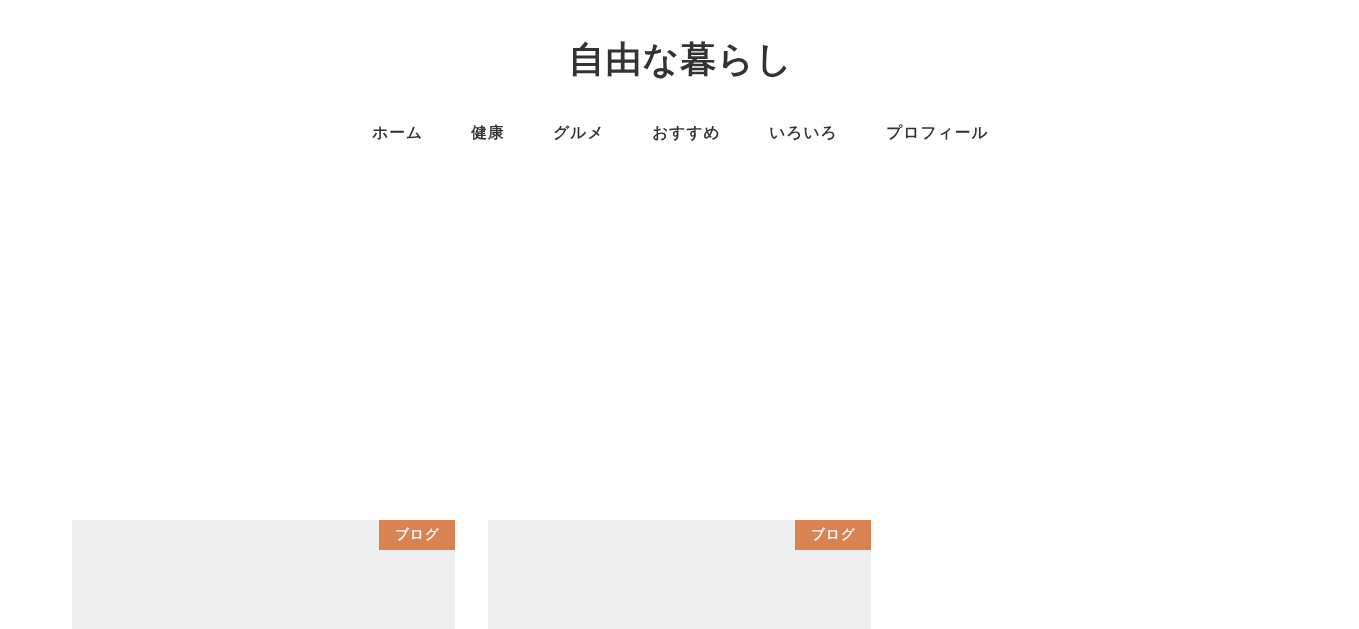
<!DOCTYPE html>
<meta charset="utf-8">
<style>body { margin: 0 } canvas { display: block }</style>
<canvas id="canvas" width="1359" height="629"></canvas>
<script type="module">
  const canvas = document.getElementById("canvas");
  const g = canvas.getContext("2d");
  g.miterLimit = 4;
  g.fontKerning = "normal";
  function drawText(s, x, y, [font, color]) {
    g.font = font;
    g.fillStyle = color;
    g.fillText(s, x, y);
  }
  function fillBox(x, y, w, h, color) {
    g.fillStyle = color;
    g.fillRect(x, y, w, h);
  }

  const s1 = ["bold 36px WenQuanYi Zen Hei", "#333333"];
  const s2 = ["bold 15.75px WenQuanYi Zen Hei", "#333333"];
  const s3 = ["bold 13.5px WenQuanYi Zen Hei", "#FFFFFF"];

  fillBox(0, 0, 1359, 629, "#FFFFFF");
  g.letterSpacing = "1px";
  drawText("自由な暮らし", 568, 72, s1);
  drawText("ホーム", 372, 138, s2);
  drawText("健康", 471, 138, s2);
  drawText("グルメ", 553, 138, s2);
  drawText("おすすめ", 652, 138, s2);
  drawText("いろいろ", 769, 138, s2);
  drawText("プロフィール", 886, 138, s2);
  fillBox(72, 520, 383, 109, "#EEEEEE");
  fillBox(379, 520, 76, 30, "#D88352");
  drawText("ブログ", 395, 539, s3);
  fillBox(488, 520, 383, 109, "#EEEEEE");
  fillBox(795, 520, 76, 30, "#D88352");
  drawText("ブログ", 811, 539, s3);
</script>
